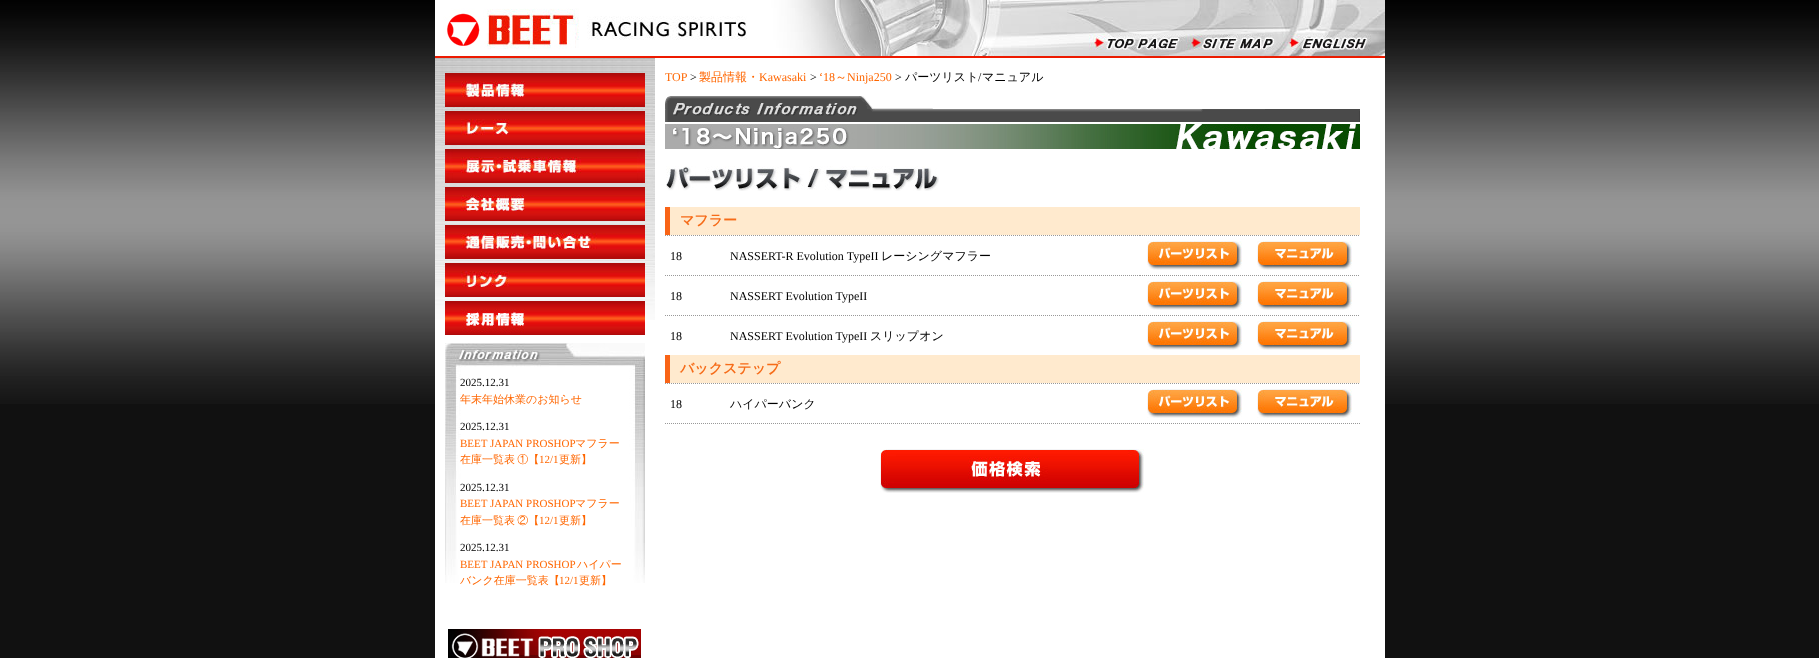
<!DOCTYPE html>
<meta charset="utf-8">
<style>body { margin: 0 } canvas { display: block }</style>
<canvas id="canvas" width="1819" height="658"></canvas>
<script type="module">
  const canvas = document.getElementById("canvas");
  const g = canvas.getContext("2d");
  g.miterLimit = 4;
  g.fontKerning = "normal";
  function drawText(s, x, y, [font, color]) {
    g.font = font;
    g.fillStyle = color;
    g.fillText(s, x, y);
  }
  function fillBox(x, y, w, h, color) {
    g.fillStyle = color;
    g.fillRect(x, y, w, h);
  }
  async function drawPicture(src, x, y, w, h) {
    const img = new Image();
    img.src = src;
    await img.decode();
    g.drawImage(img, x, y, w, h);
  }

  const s1 = ["12px Liberation Serif", "#FF6600"];
  const s2 = ["500 12px WenQuanYi Zen Hei", "#FF6600"];
  const s3 = ["500 12px WenQuanYi Zen Hei", "#000000"];
  const s4 = ["12px Liberation Serif", "#000000"];
  const s5 = ["bold 14px WenQuanYi Zen Hei", "#F66C19"];
  const s6 = ["11px Liberation Serif", "#000000"];
  const s7 = ["500 11px WenQuanYi Zen Hei", "#FF6600"];
  const s8 = ["11px Liberation Serif", "#FF6600"];

  fillBox(0, 0, 1819, 658, "#111111");
  await drawPicture("pic1.png", 0, 0, 1819, 404);
  fillBox(435, 58, 950, 600, "#FFFFFF");
  await drawPicture("pic2.png", 435, 0, 654, 58);
  await drawPicture("pic3.png", 1089, 0, 296, 34);
  await drawPicture("pic4.png", 1089, 34, 97, 24);
  await drawPicture("pic5.png", 1186, 34, 97, 24);
  await drawPicture("pic6.png", 1283, 34, 102, 24);
  drawText("TOP", 665, 81, s1);
  drawText("製品情報・", 699, 81, s2);
  drawText("Kawasaki", 759, 81, s1);
  drawText("‘18", 819, 81, s1);
  drawText("Ninja250", 847, 81, s1);
  drawText("パーツリスト マニュアル", 905, 81, s3);
  drawText(">", 690, 81, s4);
  drawText(">", 810, 81, s4);
  drawText("～", 835, 81, s2);
  drawText(">", 895, 81, s4);
  drawText("/", 978, 81, s4);
  await drawPicture("pic7.png", 665, 96, 695, 26);
  await drawPicture("pic8.png", 665, 124, 695, 25);
  await drawPicture("pic9.png", 666, 166, 273, 25);
  fillBox(670, 207, 690, 28, "#FFEACE");
  fillBox(665, 207, 5, 28, "#F96416");
  drawText("マフラー", 680, 225, s5);
  g.beginPath();
  g.moveTo(665, 235.5);
  g.lineTo(725, 235.5);
  g.strokeStyle = "#999999";
  g.setLineDash([1, 1]);
  g.stroke();
  drawText("18", 670, 260, s4);
  g.beginPath();
  g.moveTo(725, 235.5);
  g.lineTo(1140, 235.5);
  g.stroke();
  drawText("NASSERT-R Evolution TypeII", 730, 260, s4);
  drawText("レーシングマフラー", 881, 260, s3);
  g.beginPath();
  g.moveTo(1140, 235.5);
  g.lineTo(1250, 235.5);
  g.stroke();
  await drawPicture("pic10.png", 1147, 241, 95, 29);
  g.beginPath();
  g.moveTo(1250, 235.5);
  g.lineTo(1360, 235.5);
  g.stroke();
  await drawPicture("pic11.png", 1257, 241, 95, 29);
  g.beginPath();
  g.moveTo(665, 275.5);
  g.lineTo(725, 275.5);
  g.stroke();
  drawText("18", 670, 300, s4);
  g.beginPath();
  g.moveTo(725, 275.5);
  g.lineTo(1140, 275.5);
  g.stroke();
  drawText("NASSERT Evolution TypeII", 730, 300, s4);
  g.beginPath();
  g.moveTo(1140, 275.5);
  g.lineTo(1250, 275.5);
  g.stroke();
  await drawPicture("pic10.png", 1147, 281, 95, 29);
  g.beginPath();
  g.moveTo(1250, 275.5);
  g.lineTo(1360, 275.5);
  g.stroke();
  await drawPicture("pic11.png", 1257, 281, 95, 29);
  g.beginPath();
  g.moveTo(665, 315.5);
  g.lineTo(725, 315.5);
  g.stroke();
  drawText("18", 670, 340, s4);
  g.beginPath();
  g.moveTo(725, 315.5);
  g.lineTo(1140, 315.5);
  g.stroke();
  drawText("NASSERT Evolution TypeII", 730, 340, s4);
  drawText("スリップオン", 870, 340, s3);
  g.beginPath();
  g.moveTo(1140, 315.5);
  g.lineTo(1250, 315.5);
  g.stroke();
  await drawPicture("pic10.png", 1147, 321, 95, 29);
  g.beginPath();
  g.moveTo(1250, 315.5);
  g.lineTo(1360, 315.5);
  g.stroke();
  await drawPicture("pic11.png", 1257, 321, 95, 29);
  fillBox(670, 355, 690, 28, "#FFEACE");
  fillBox(665, 355, 5, 28, "#F96416");
  drawText("バックステップ", 680, 373, s5);
  g.beginPath();
  g.moveTo(665, 383.5);
  g.lineTo(725, 383.5);
  g.stroke();
  drawText("18", 670, 408, s4);
  g.beginPath();
  g.moveTo(725, 383.5);
  g.lineTo(1140, 383.5);
  g.stroke();
  drawText("ハイパーバンク", 730, 408, s3);
  g.beginPath();
  g.moveTo(1140, 383.5);
  g.lineTo(1250, 383.5);
  g.stroke();
  await drawPicture("pic10.png", 1147, 389, 95, 29);
  g.beginPath();
  g.moveTo(1250, 383.5);
  g.lineTo(1360, 383.5);
  g.stroke();
  await drawPicture("pic11.png", 1257, 389, 95, 29);
  g.beginPath();
  g.moveTo(665, 423.5);
  g.lineTo(1360, 423.5);
  g.stroke();
  await drawPicture("pic12.png", 880, 449, 264, 44);
  await drawPicture("pic13.png", 435, 58, 220, 262);
  await drawPicture("pic14.png", 445, 73, 200, 34);
  await drawPicture("pic15.png", 445, 111, 200, 34);
  await drawPicture("pic16.png", 445, 149, 200, 34);
  await drawPicture("pic17.png", 445, 187, 200, 34);
  await drawPicture("pic18.png", 445, 225, 200, 34);
  await drawPicture("pic19.png", 445, 263, 200, 34);
  await drawPicture("pic20.png", 445, 301, 200, 34);
  await drawPicture("pic21.png", 445, 343, 200, 240);
  drawText("2025.12.31", 460, 386, s6);
  drawText("年末年始休業のお知らせ", 460, 403, s7);
  drawText("2025.12.31", 460, 430, s6);
  drawText("BEET JAPAN PROSHOP", 460, 447, s8);
  drawText("マフラー", 575, 447, s7);
  g.wordSpacing = "-1px";
  drawText("在庫一覧表 ①【", 460, 463, s7);
  g.wordSpacing = "0px";
  drawText("12/1", 539, 463, s8);
  drawText("更新】", 559, 463, s7);
  drawText("2025.12.31", 460, 491, s6);
  drawText("BEET JAPAN PROSHOP", 460, 507, s8);
  drawText("マフラー", 575, 507, s7);
  g.wordSpacing = "-1px";
  drawText("在庫一覧表 ②【", 460, 524, s7);
  g.wordSpacing = "0px";
  drawText("12/1", 539, 524, s8);
  drawText("更新】", 559, 524, s7);
  drawText("2025.12.31", 460, 551, s6);
  drawText("BEET JAPAN PROSHOP", 460, 568, s8);
  drawText("ハイパー", 577, 568, s7);
  drawText("バンク在庫一覧表【", 460, 584, s7);
  drawText("12/1", 559, 584, s8);
  drawText("更新】", 579, 584, s7);
  await drawPicture("pic22.png", 448, 629, 193, 29);
</script>
